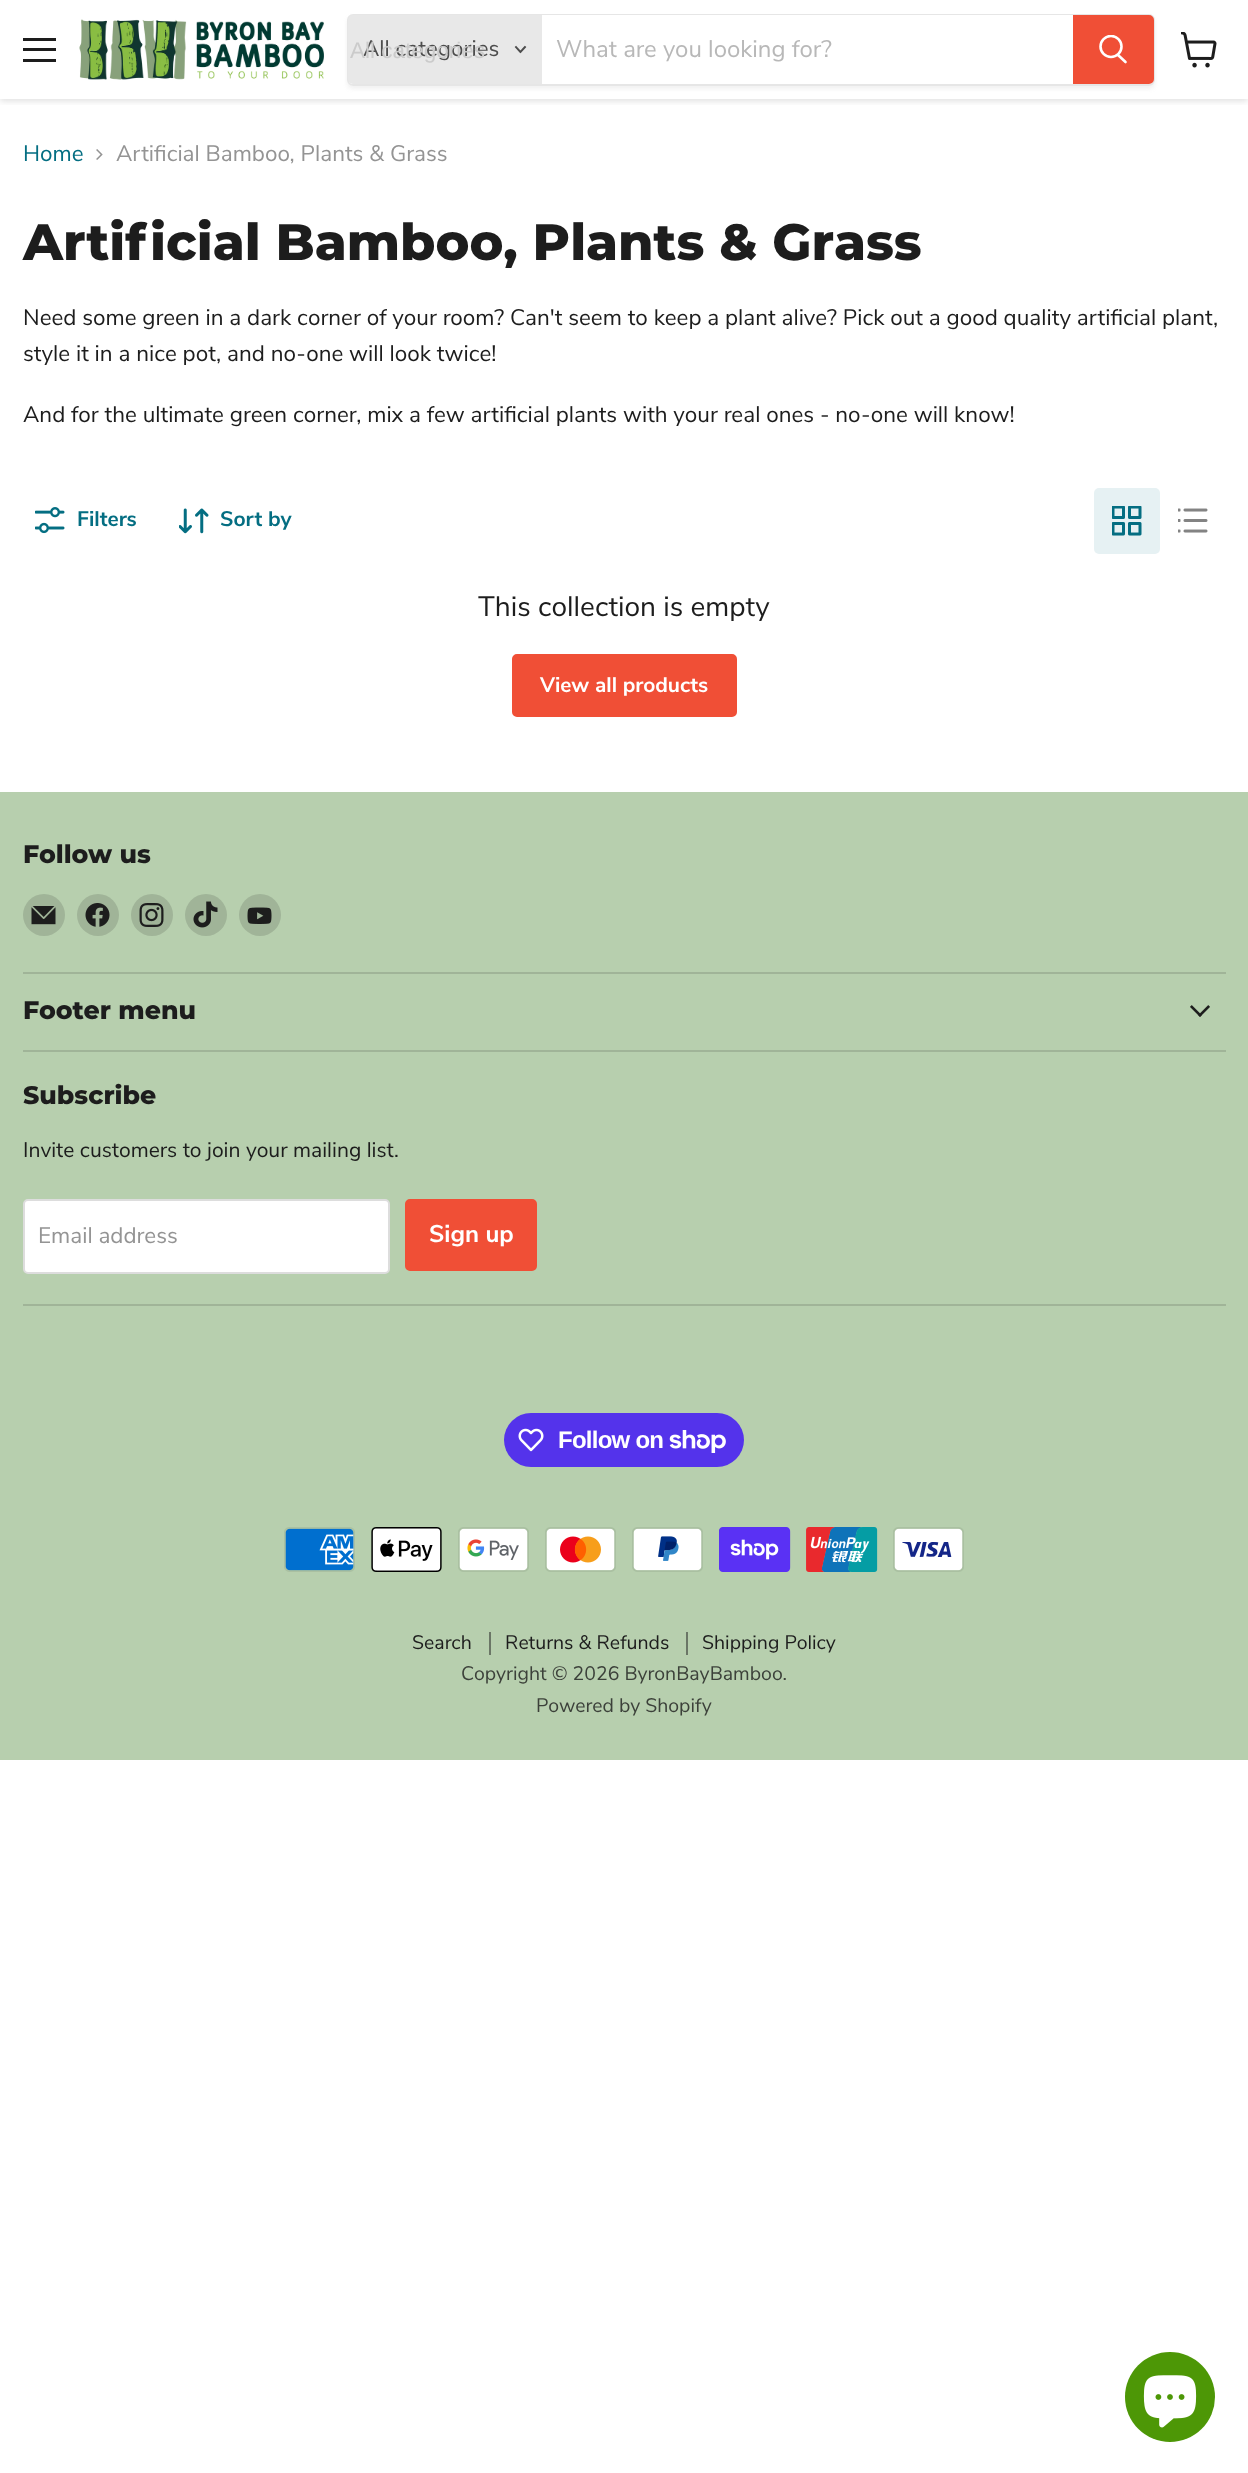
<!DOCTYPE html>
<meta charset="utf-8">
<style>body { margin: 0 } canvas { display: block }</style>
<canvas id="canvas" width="1248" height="2473"></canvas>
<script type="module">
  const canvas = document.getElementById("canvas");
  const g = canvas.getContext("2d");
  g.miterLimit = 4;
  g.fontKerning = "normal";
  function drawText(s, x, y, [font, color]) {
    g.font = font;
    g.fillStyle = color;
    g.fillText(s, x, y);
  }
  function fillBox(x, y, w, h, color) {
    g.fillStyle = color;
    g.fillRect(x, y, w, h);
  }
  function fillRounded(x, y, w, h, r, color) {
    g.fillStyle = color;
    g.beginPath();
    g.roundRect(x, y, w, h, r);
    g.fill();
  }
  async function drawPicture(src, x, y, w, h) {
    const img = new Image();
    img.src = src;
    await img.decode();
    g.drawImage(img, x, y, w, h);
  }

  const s1 = ["22.5px Nunito Sans", "#4D4D4D"];
  const s2 = ["22.5px Liberation Sans", "#CBCBCB"];
  const s3 = ["24px Nunito Sans", "#B8B8B8"];
  const s4 = ["22.5px Nunito Sans", "#046E82"];
  const s5 = ["22.5px Nunito Sans", "#949494"];
  const s6 = ["800 51px Montserrat", "#1D1D1D"];
  const s7 = ["22.5px Nunito Sans", "#1D1D1D"];
  const s8 = ["bold 21.1px Nunito Sans", "#046E82"];
  const s9 = ["28.1px Nunito Sans", "#1D1D1D"];
  const s10 = ["bold 21px Nunito Sans", "#FFFFFF"];
  const s11 = ["800 25.25px Montserrat", "#1D1D1D"];
  const s12 = ["21.1px Nunito Sans", "#1D1D1D"];
  const s13 = ["bold 24px Nunito Sans", "#FFFFFF"];
  const s14 = ["bold 24px Liberation Sans", "#FFFFFF"];
  const s15 = ["19.5px Nunito Sans", "#1D1D1D"];
  const s16 = ["19.5px Nunito Sans", "#3C413A"];

  fillBox(0, 0, 1248, 2473, "#FFFFFF");
  g.save();
  g.beginPath();
  g.rect(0, 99, 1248, 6);
  g.clip();
  g.fillStyle = "rgba(128, 128, 128, 0.25)";
  g.filter = "blur(3px)";
  g.beginPath();
  g.rect(0, 2, 1248, 99);
  g.fill();
  g.filter = "none";
  g.restore();
  fillBox(23, 38, 33, 3, "#1D1D1D");
  fillBox(23, 48, 33, 3, "#1D1D1D");
  fillBox(23, 59, 33, 3, "#1D1D1D");
  await drawPicture("pic1.png", 79, 19, 245, 61);
  g.save();
  g.beginPath();
  g.moveTo(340, 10);
  g.lineTo(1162, 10);
  g.lineTo(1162, 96);
  g.lineTo(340, 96);
  g.closePath();
  g.moveTo(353, 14);
  g.lineTo(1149, 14);
  g.bezierCurveTo(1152.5, 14, 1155, 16.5, 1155, 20);
  g.lineTo(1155, 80);
  g.bezierCurveTo(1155, 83.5, 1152.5, 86, 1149, 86);
  g.lineTo(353, 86);
  g.bezierCurveTo(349.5, 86, 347, 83.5, 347, 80);
  g.lineTo(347, 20);
  g.bezierCurveTo(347, 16.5, 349.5, 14, 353, 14);
  g.closePath();
  g.clip("evenodd");
  g.fillStyle = "rgba(128, 128, 128, 0.11)";
  g.filter = "blur(2px)";
  g.beginPath();
  g.roundRect(347, 17, 808, 72, 6);
  g.fill();
  g.filter = "none";
  g.restore();
  g.beginPath();
  g.roundRect(348, 15, 806, 70, 5);
  g.strokeStyle = "rgba(128, 128, 128, 0.2)";
  g.lineWidth = 2;
  g.stroke();
  g.fillStyle = "#E8E8E8";
  g.beginPath();
  g.roundRect(348, 15, 194, 69, [5, 0, 0, 5]);
  g.fill();
  drawText("All categories", 363, 56, s1);
  drawText("All categories", 350, 58, s2);
  g.beginPath();
  g.moveTo(520.5, 52);
  g.lineTo(525, 47);
  g.moveTo(520.5, 52);
  g.lineTo(516, 47);
  g.strokeStyle = "#4D4D4D";
  g.lineWidth = 1.9;
  g.lineCap = "square";
  g.stroke();
  fillBox(542, 15, 531, 1, "#FFFFFF");
  drawText("What are you looking for?", 556, 57, s3);
  g.fillStyle = "#F04F36";
  g.beginPath();
  g.roundRect(1074, 16, 79, 67, [0, 4, 4, 0]);
  g.fill();
  g.strokeStyle = "#F04F36";
  g.lineWidth = 2;
  g.stroke();
  g.beginPath();
  g.moveTo(1125.5, 62);
  g.lineTo(1118, 55);
  g.strokeStyle = "#FFFFFF";
  g.lineWidth = 2.6;
  g.lineCap = "round";
  g.stroke();
  g.save();
  g.beginPath();
  g.rect(1098, 35, 30, 31);
  g.clip();
  g.beginPath();
  g.arc(1111, 46.5, 10.5, 0, Math.PI * 2);
  g.stroke();
  g.restore();
  await drawPicture("pic2.png", 1181, 32, 36, 36);
  drawText("Home", 23, 161, s4);
  await drawPicture("pic3.png", 96, 149, 7, 11);
  drawText("Artificial Bamboo, Plants & Grass", 116, 161, s5);
  drawText("Artificial Bamboo, Plants & Grass", 23, 260, s6);
  drawText("Need some green in a dark corner of your room? Can't seem to keep a plant alive? Pick out a good quality artificial plant,", 23, 325, s7);
  drawText("style it in a nice pot, and no-one will look twice!", 23, 361, s7);
  drawText("And for the ultimate green corner, mix a few artificial plants with your real ones - no-one will know!", 23, 422, s7);
  await drawPicture("pic4.png", 35, 507, 30, 27);
  drawText("Filters", 77, 526, s8);
  await drawPicture("pic5.png", 179, 508, 30, 26);
  drawText("Sort by", 220, 526, s8);
  fillRounded(1094, 488, 66, 66, 5, "#E6F1F3");
  await drawPicture("pic6.png", 1112, 506, 30, 30);
  await drawPicture("pic7.png", 1178, 508, 30, 25);
  drawText("This collection is empty", 478, 616, s9);
  g.fillStyle = "#F04F36";
  g.beginPath();
  g.roundRect(513, 655, 223, 61, 4);
  g.fill();
  g.strokeStyle = "#F04F36";
  g.lineWidth = 2;
  g.stroke();
  drawText("View all products", 540, 692, s10);
  fillBox(0, 792, 1248, 968, "#B7CFAE");
  fillBox(23, 972, 1203, 2, "#A0B498");
  drawText("Follow us", 23, 863, s11);
  g.fillStyle = "#A0B498";
  g.beginPath();
  g.arc(44, 915, 21, 0, Math.PI * 2);
  g.fill();
  await drawPicture("pic8.png", 31, 906, 25, 19);
  g.beginPath();
  g.arc(98, 915, 21, 0, Math.PI * 2);
  g.fill();
  await drawPicture("pic9.png", 85, 903, 25, 24);
  g.beginPath();
  g.arc(152, 915, 21, 0, Math.PI * 2);
  g.fill();
  await drawPicture("pic10.png", 139, 903, 25, 24);
  g.beginPath();
  g.arc(206, 915, 21, 0, Math.PI * 2);
  g.fill();
  await drawPicture("pic11.png", 193, 901, 25, 27);
  g.beginPath();
  g.arc(260, 915, 21, 0, Math.PI * 2);
  g.fill();
  await drawPicture("pic12.png", 247, 907, 25, 17);
  fillBox(23, 1050, 1203, 2, "#A0B498");
  drawText("Footer menu", 23, 1019, s11);
  await drawPicture("pic13.png", 1190, 1005, 20, 12);
  fillBox(23, 1304, 1203, 2, "#A0B498");
  drawText("Subscribe", 23, 1104, s11);
  drawText("Invite customers to join your mailing list.", 23, 1157, s12);
  g.fillStyle = "#FFFFFF";
  g.beginPath();
  g.roundRect(24, 1200, 365, 73, 4);
  g.fill();
  g.strokeStyle = "#DDDDDD";
  g.stroke();
  drawText("Email address", 38, 1243, s5);
  g.fillStyle = "#F04F36";
  g.beginPath();
  g.roundRect(406, 1200, 130, 70, 4);
  g.fill();
  g.strokeStyle = "#F04F36";
  g.stroke();
  drawText("Sign up", 429, 1242, s13);
  fillRounded(504, 1413, 240, 54, 27, "#5433EB");
  await drawPicture("pic14.png", 518, 1428, 26, 24);
  g.letterSpacing = "-0.75px";
  drawText("Follow on", 558, 1448, s14);
  await drawPicture("pic15.png", 669, 1430, 57, 23);
  await drawPicture("pic16.png", 284, 1527, 71, 45);
  await drawPicture("pic17.png", 371, 1527, 71, 45);
  await drawPicture("pic18.png", 458, 1527, 71, 45);
  await drawPicture("pic19.png", 545, 1527, 71, 45);
  await drawPicture("pic20.png", 632, 1527, 71, 45);
  await drawPicture("pic21.png", 719, 1527, 72, 45);
  await drawPicture("pic22.png", 806, 1527, 72, 45);
  await drawPicture("pic23.png", 893, 1527, 71, 45);
  fillBox(489, 1632, 2, 23, "#6A7666");
  g.letterSpacing = "0px";
  drawText("Search", 412, 1649, s15);
  fillBox(686, 1632, 2, 23, "#6A7666");
  drawText("Returns & Refunds", 505, 1649, s15);
  drawText("Shipping Policy", 702, 1649, s15);
  drawText("Copyright © 2026 ByronBayBamboo.", 461, 1680, s16);
  drawText("Powered by Shopify", 536, 1712, s16);
  g.fillStyle = "#4D9706";
  g.beginPath();
  g.arc(1170, 2397, 45, 0, Math.PI * 2);
  g.fill();
  await drawPicture("pic24.png", 1143, 2375, 54, 53);
</script>
